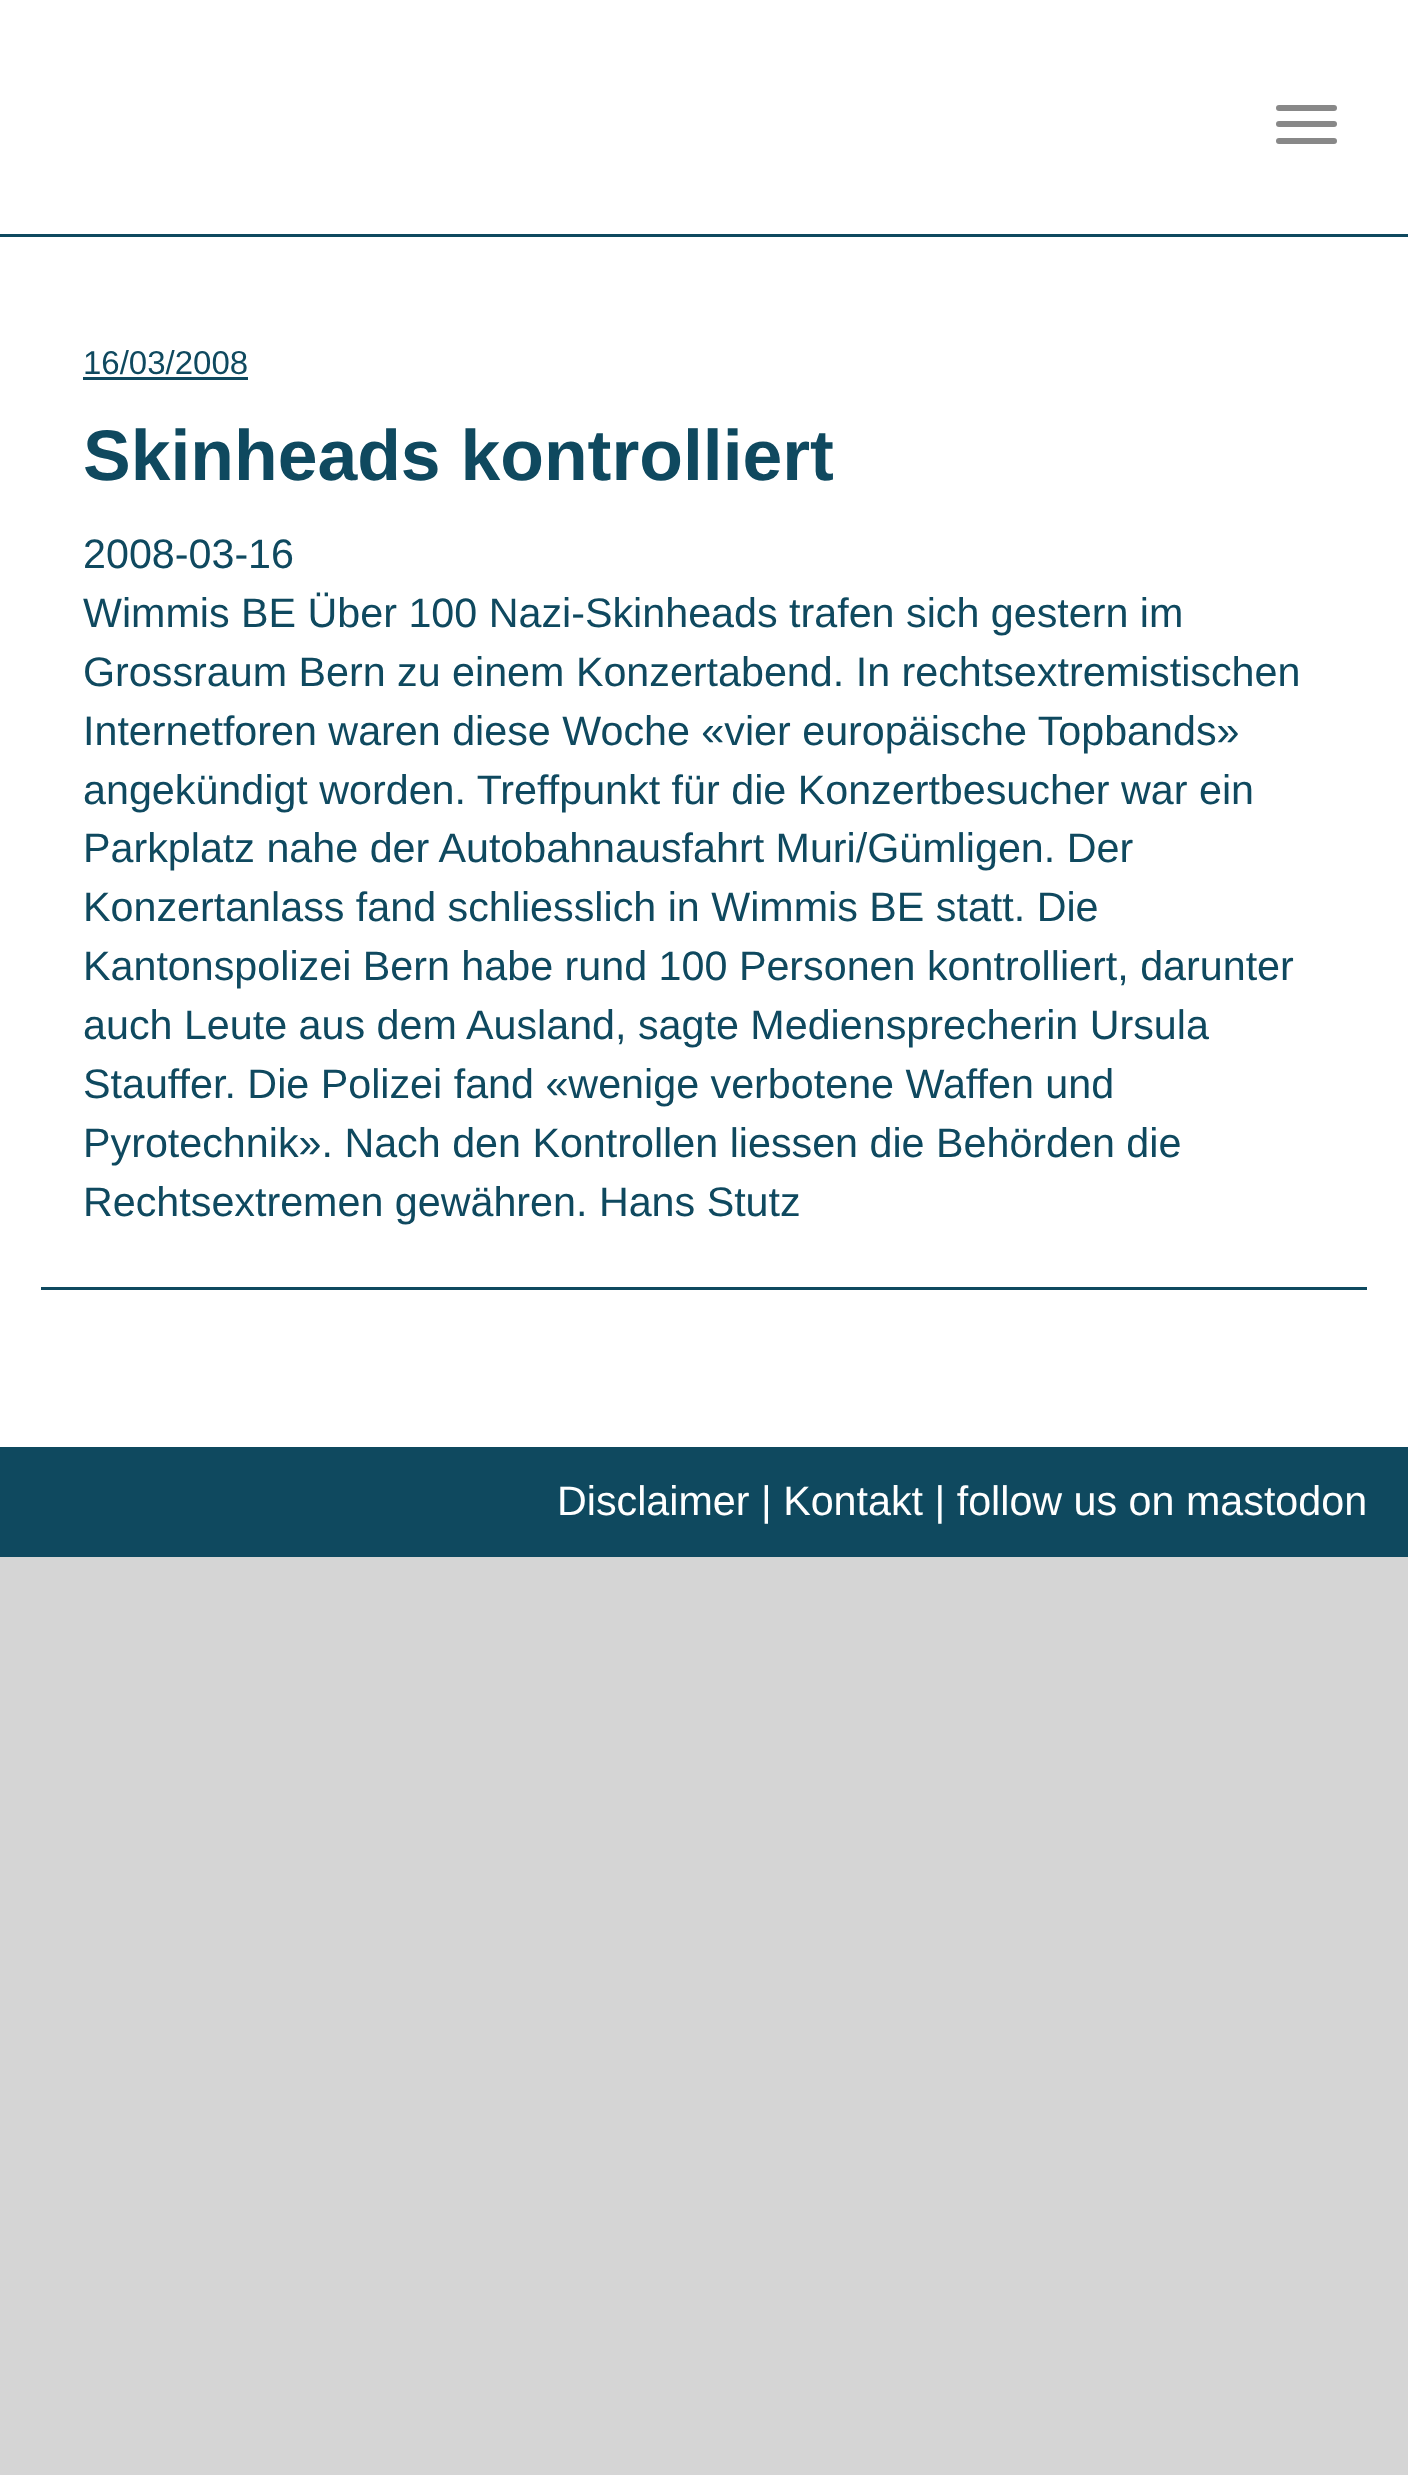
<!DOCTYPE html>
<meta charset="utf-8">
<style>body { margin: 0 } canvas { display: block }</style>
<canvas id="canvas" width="1408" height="2475"></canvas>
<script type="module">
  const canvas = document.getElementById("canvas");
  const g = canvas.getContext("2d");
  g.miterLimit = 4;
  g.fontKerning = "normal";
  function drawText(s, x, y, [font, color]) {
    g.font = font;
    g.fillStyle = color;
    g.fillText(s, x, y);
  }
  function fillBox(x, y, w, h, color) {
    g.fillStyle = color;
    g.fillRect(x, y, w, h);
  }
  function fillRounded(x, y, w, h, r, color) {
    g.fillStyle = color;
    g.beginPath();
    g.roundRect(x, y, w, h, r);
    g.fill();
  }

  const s1 = ["33px Liberation Sans", "#0F495F"];
  const s2 = ["bold 71.5px Liberation Sans", "#0F495F"];
  const s3 = ["41.25px Liberation Sans", "#0F495F"];
  const s4 = ["41.25px Liberation Sans", "#FFFFFF"];

  fillBox(0, 0, 1408, 2475, "#D5D5D5");
  fillBox(0, 0, 1408, 234, "#FFFFFF");
  fillBox(0, 234, 1408, 3, "#0F495F");
  fillRounded(1276, 105, 61, 6, 3, "#888888");
  fillRounded(1276, 121, 61, 6, 3, "#888888");
  fillRounded(1276, 138, 61, 6, 3, "#888888");
  fillBox(0, 237, 1408, 1210, "#FFFFFF");
  fillBox(41, 1287, 1326, 3, "#0F495F");
  drawText("16/03/2008", 83, 374, s1);
  fillBox(83, 377, 165, 3, "#0F495F");
  drawText("Skinheads kontrolliert", 83, 480, s2);
  drawText("2008-03-16", 83, 568, s3);
  drawText("Wimmis BE Über 100 Nazi-Skinheads trafen sich gestern im", 83, 627, s3);
  drawText("Grossraum Bern zu einem Konzertabend. In rechtsextremistischen", 83, 686, s3);
  drawText("Internetforen waren diese Woche «vier europäische Topbands»", 83, 745, s3);
  drawText("angekündigt worden. Treffpunkt für die Konzertbesucher war ein", 83, 804, s3);
  drawText("Parkplatz nahe der Autobahnausfahrt Muri/Gümligen. Der", 83, 862, s3);
  drawText("Konzertanlass fand schliesslich in Wimmis BE statt. Die", 83, 921, s3);
  drawText("Kantonspolizei Bern habe rund 100 Personen kontrolliert, darunter", 83, 980, s3);
  drawText("auch Leute aus dem Ausland, sagte Mediensprecherin Ursula", 83, 1039, s3);
  drawText("Stauffer. Die Polizei fand «wenige verbotene Waffen und", 83, 1098, s3);
  drawText("Pyrotechnik». Nach den Kontrollen liessen die Behörden die", 83, 1157, s3);
  drawText("Rechtsextremen gewähren. Hans Stutz", 83, 1216, s3);
  fillBox(0, 1447, 1408, 110, "#0F495F");
  drawText("Disclaimer | Kontakt | follow us on mastodon", 557, 1515, s4);
</script>
